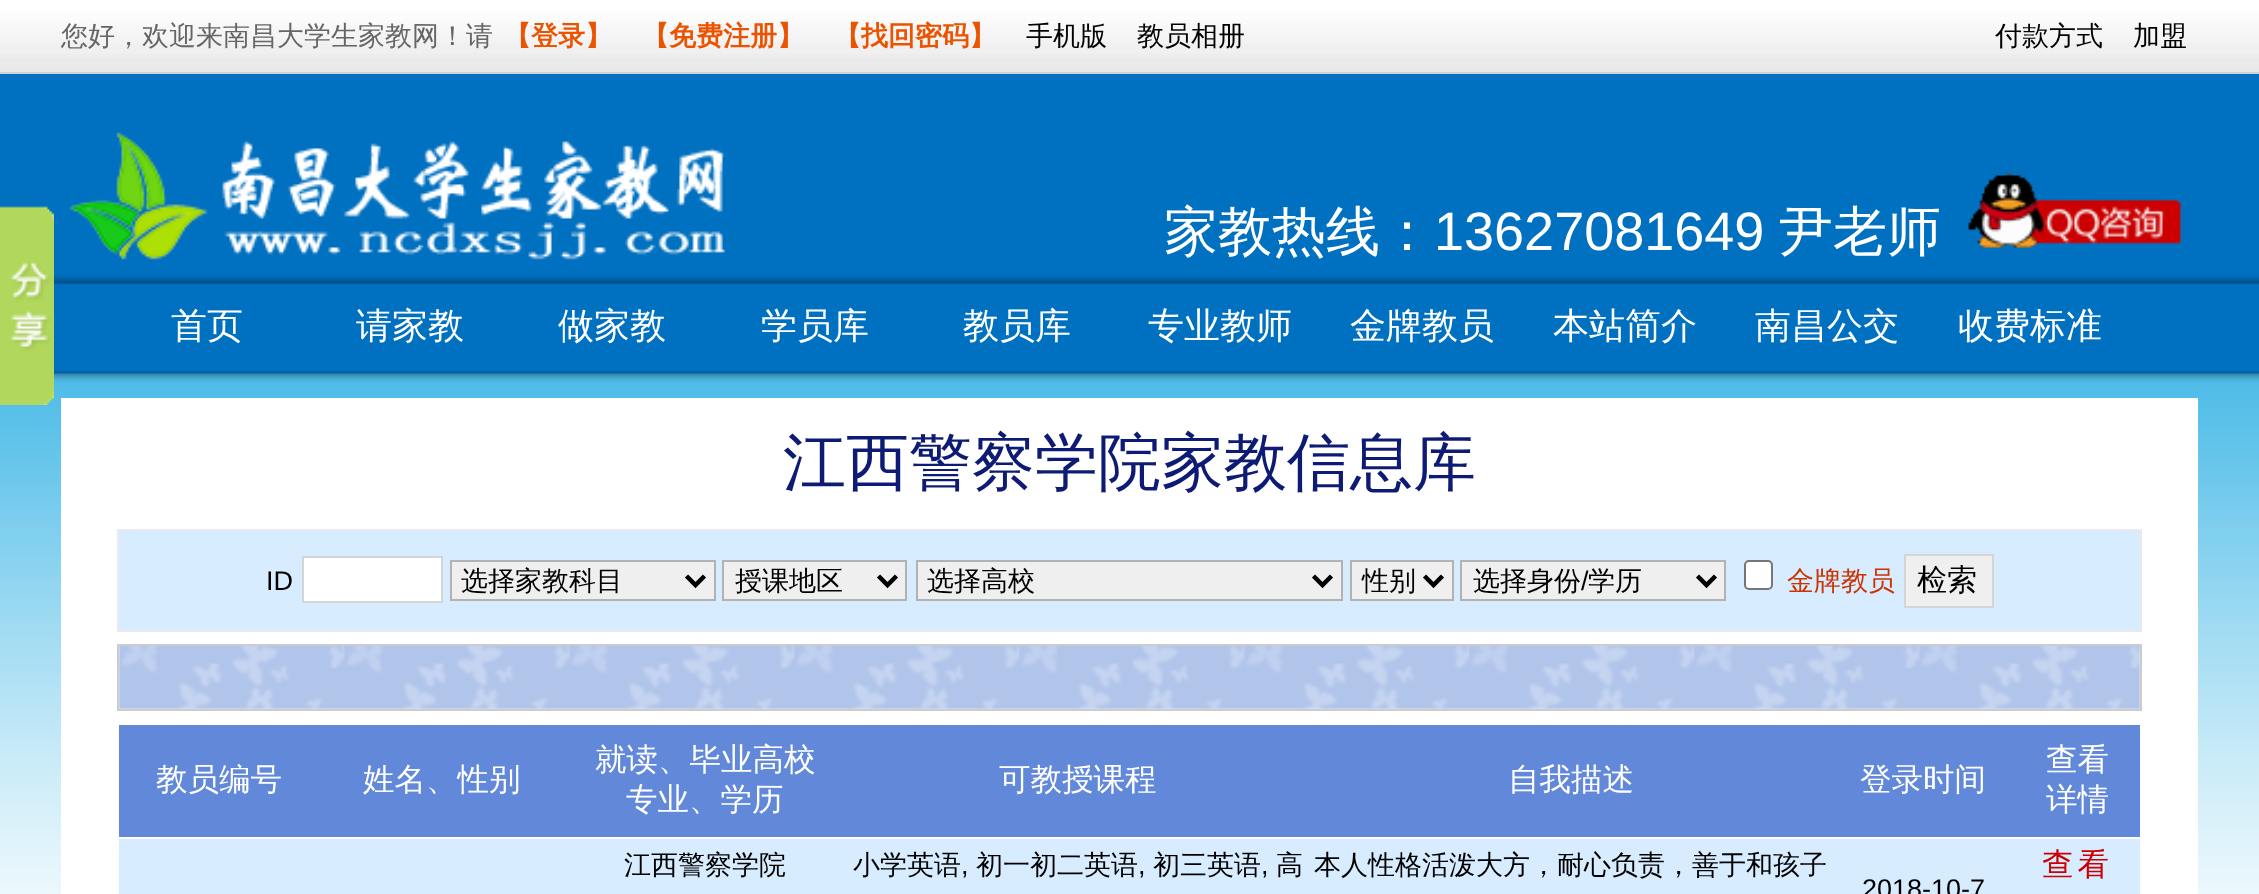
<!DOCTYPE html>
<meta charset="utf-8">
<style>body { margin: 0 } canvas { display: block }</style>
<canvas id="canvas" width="2259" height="894"></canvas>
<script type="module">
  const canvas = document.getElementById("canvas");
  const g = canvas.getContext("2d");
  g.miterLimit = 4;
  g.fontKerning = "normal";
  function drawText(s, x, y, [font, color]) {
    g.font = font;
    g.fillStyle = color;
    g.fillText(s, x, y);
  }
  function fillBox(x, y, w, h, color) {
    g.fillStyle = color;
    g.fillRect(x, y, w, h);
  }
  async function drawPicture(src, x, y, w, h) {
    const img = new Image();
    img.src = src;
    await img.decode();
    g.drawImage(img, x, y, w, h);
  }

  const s1 = ["500 27px WenQuanYi Zen Hei", "#666666"];
  const s2 = ["bold 27px WenQuanYi Zen Hei", "#EC5300"];
  const s3 = ["500 27px WenQuanYi Zen Hei", "#000000"];
  const s4 = ["500 54px WenQuanYi Zen Hei", "#FFFFFF"];
  const s5 = ["54px Liberation Sans", "#FFFFFF"];
  const s6 = ["500 36px WenQuanYi Zen Hei", "#FFFFFF"];
  const s7 = ["500 63px WenQuanYi Zen Hei", "#0E1B74"];
  const s8 = ["27px Liberation Sans", "#000000"];
  const s9 = ["500 27px WenQuanYi Zen Hei", "#CC3300"];
  const s10 = ["500 30px WenQuanYi Zen Hei", "#000000"];
  const s11 = ["500 31.5px WenQuanYi Zen Hei", "#FFFFFF"];
  const s12 = ["500 31.5px WenQuanYi Zen Hei", "#CC0000"];

  fillBox(0, 0, 2259, 894, "#FFFFFF");
  await drawPicture("pic1.png", 0, 74, 2259, 820);
  await drawPicture("pic2.png", 0, 0, 2259, 72);
  fillBox(0, 72, 2259, 2, "#D2D2D2");
  drawText("您好，欢迎来南昌大学生家教网！请", 61, 45, s1);
  drawText("【登录】", 504, 45, s2);
  drawText("【免费注册】", 642, 45, s2);
  drawText("【找回密码】", 834, 45, s2);
  drawText("手机版", 1026, 45, s3);
  drawText("教员相册", 1137, 45, s3);
  drawText("付款方式", 1995, 45, s3);
  drawText("加盟", 2133, 45, s3);
  await drawPicture("pic3.png", 0, 206, 54, 199);
  await drawPicture("pic4.png", 69, 132, 657, 128);
  drawText("家教热线：", 1164, 250, s4);
  drawText("13627081649", 1434, 250, s5);
  drawText("尹老师", 1779, 250, s4);
  await drawPicture("pic5.png", 1968, 173, 213, 76);
  drawText("首页", 171, 338, s6);
  drawText("请家教", 356, 338, s6);
  drawText("做家教", 558, 338, s6);
  drawText("学员库", 761, 338, s6);
  drawText("教员库", 963, 338, s6);
  drawText("专业教师", 1148, 338, s6);
  drawText("金牌教员", 1350, 338, s6);
  drawText("本站简介", 1553, 338, s6);
  drawText("南昌公交", 1755, 338, s6);
  drawText("收费标准", 1958, 338, s6);
  fillBox(61, 398, 2137, 496, "#FFFFFF");
  drawText("江西警察学院家教信息库", 783, 484, s7);
  fillBox(117, 529, 2025, 103, "#EBE9ED");
  fillBox(119, 531, 2021, 99, "#D7ECFF");
  drawText("ID", 266, 590, s8);
  g.fillStyle = "#FFFFFF";
  g.beginPath();
  g.rect(303, 557, 139, 45);
  g.fill();
  g.strokeStyle = "#D5D5D5";
  g.lineWidth = 2;
  g.stroke();
  g.fillStyle = "#EFEFEF";
  g.beginPath();
  g.rect(451, 561, 264, 39);
  g.fill();
  g.strokeStyle = "#B2B2B2";
  g.stroke();
  g.beginPath();
  g.moveTo(686.5, 576);
  g.lineTo(695.5, 585);
  g.lineTo(704.5, 576);
  g.strokeStyle = "#000000";
  g.lineWidth = 4.5;
  g.stroke();
  drawText("选择家教科目", 461, 590, s3);
  g.fillStyle = "#EFEFEF";
  g.beginPath();
  g.rect(723, 561, 183, 39);
  g.fill();
  g.strokeStyle = "#B2B2B2";
  g.lineWidth = 2;
  g.stroke();
  g.beginPath();
  g.moveTo(878.5, 576);
  g.lineTo(887.5, 585);
  g.lineTo(896.5, 576);
  g.strokeStyle = "#000000";
  g.lineWidth = 4.5;
  g.stroke();
  drawText("授课地区", 735, 590, s3);
  g.fillStyle = "#EFEFEF";
  g.beginPath();
  g.rect(917, 561, 425, 39);
  g.fill();
  g.strokeStyle = "#B2B2B2";
  g.lineWidth = 2;
  g.stroke();
  g.beginPath();
  g.moveTo(1313.5, 576);
  g.lineTo(1322.5, 585);
  g.lineTo(1331.5, 576);
  g.strokeStyle = "#000000";
  g.lineWidth = 4.5;
  g.stroke();
  drawText("选择高校", 927, 590, s3);
  g.fillStyle = "#EFEFEF";
  g.beginPath();
  g.rect(1351, 561, 102, 39);
  g.fill();
  g.strokeStyle = "#B2B2B2";
  g.lineWidth = 2;
  g.stroke();
  g.beginPath();
  g.moveTo(1424.5, 576);
  g.lineTo(1433.5, 585);
  g.lineTo(1442.5, 576);
  g.strokeStyle = "#000000";
  g.lineWidth = 4.5;
  g.stroke();
  drawText("性别", 1362, 590, s3);
  g.fillStyle = "#EFEFEF";
  g.beginPath();
  g.rect(1461, 561, 264, 39);
  g.fill();
  g.strokeStyle = "#B2B2B2";
  g.lineWidth = 2;
  g.stroke();
  g.beginPath();
  g.moveTo(1697.5, 576);
  g.lineTo(1706.5, 585);
  g.lineTo(1715.5, 576);
  g.strokeStyle = "#000000";
  g.lineWidth = 4.5;
  g.stroke();
  drawText("选择身份", 1473, 590, s3);
  drawText("/", 1581, 590, s8);
  drawText("学历", 1588, 590, s3);
  g.fillStyle = "#FFFFFF";
  g.beginPath();
  g.roundRect(1745, 561, 27, 28, 4);
  g.fill();
  g.strokeStyle = "#767676";
  g.lineWidth = 2;
  g.stroke();
  drawText("金牌教员", 1787, 590, s9);
  g.fillStyle = "#EFEFEF";
  g.beginPath();
  g.rect(1905, 555, 88, 52);
  g.fill();
  g.strokeStyle = "#D5D5D5";
  g.stroke();
  drawText("检索", 1917, 590, s10);
  fillBox(117, 644, 2025, 67, "#CCCCCC");
  fillBox(119, 646, 2021, 63, "#FFFFFF");
  await drawPicture("pic6.png", 119, 645, 2021, 64);
  fillBox(119, 725, 2021, 112, "#6288D9");
  drawText("教员编号", 156, 790, s11);
  drawText("姓名、性别", 363, 790, s11);
  drawText("就读、毕业高校", 595, 770, s11);
  drawText("专业、学历", 626, 810, s11);
  drawText("可教授课程", 999, 790, s11);
  drawText("自我描述", 1508, 790, s11);
  drawText("登录时间", 1860, 790, s11);
  drawText("查看", 2046, 770, s11);
  drawText("详情", 2046, 810, s11);
  fillBox(119, 839, 2021, 55, "#D7ECFF");
  drawText("江西警察学院", 624, 874, s3);
  drawText("小学英语", 853, 874, s3);
  drawText(",", 961, 874, s8);
  drawText("初一初二英语", 976, 874, s3);
  drawText(",", 1138, 874, s8);
  drawText("初三英语", 1153, 874, s3);
  drawText(",", 1261, 874, s8);
  drawText("高", 1276, 874, s3);
  drawText("本人性格活泼大方，耐心负责，善于和孩子", 1314, 874, s3);
  g.letterSpacing = "4px";
  drawText("查看", 2042, 875, s12);
  g.letterSpacing = "0px";
  drawText("2018-10-7", 1862, 898, s8);
</script>
